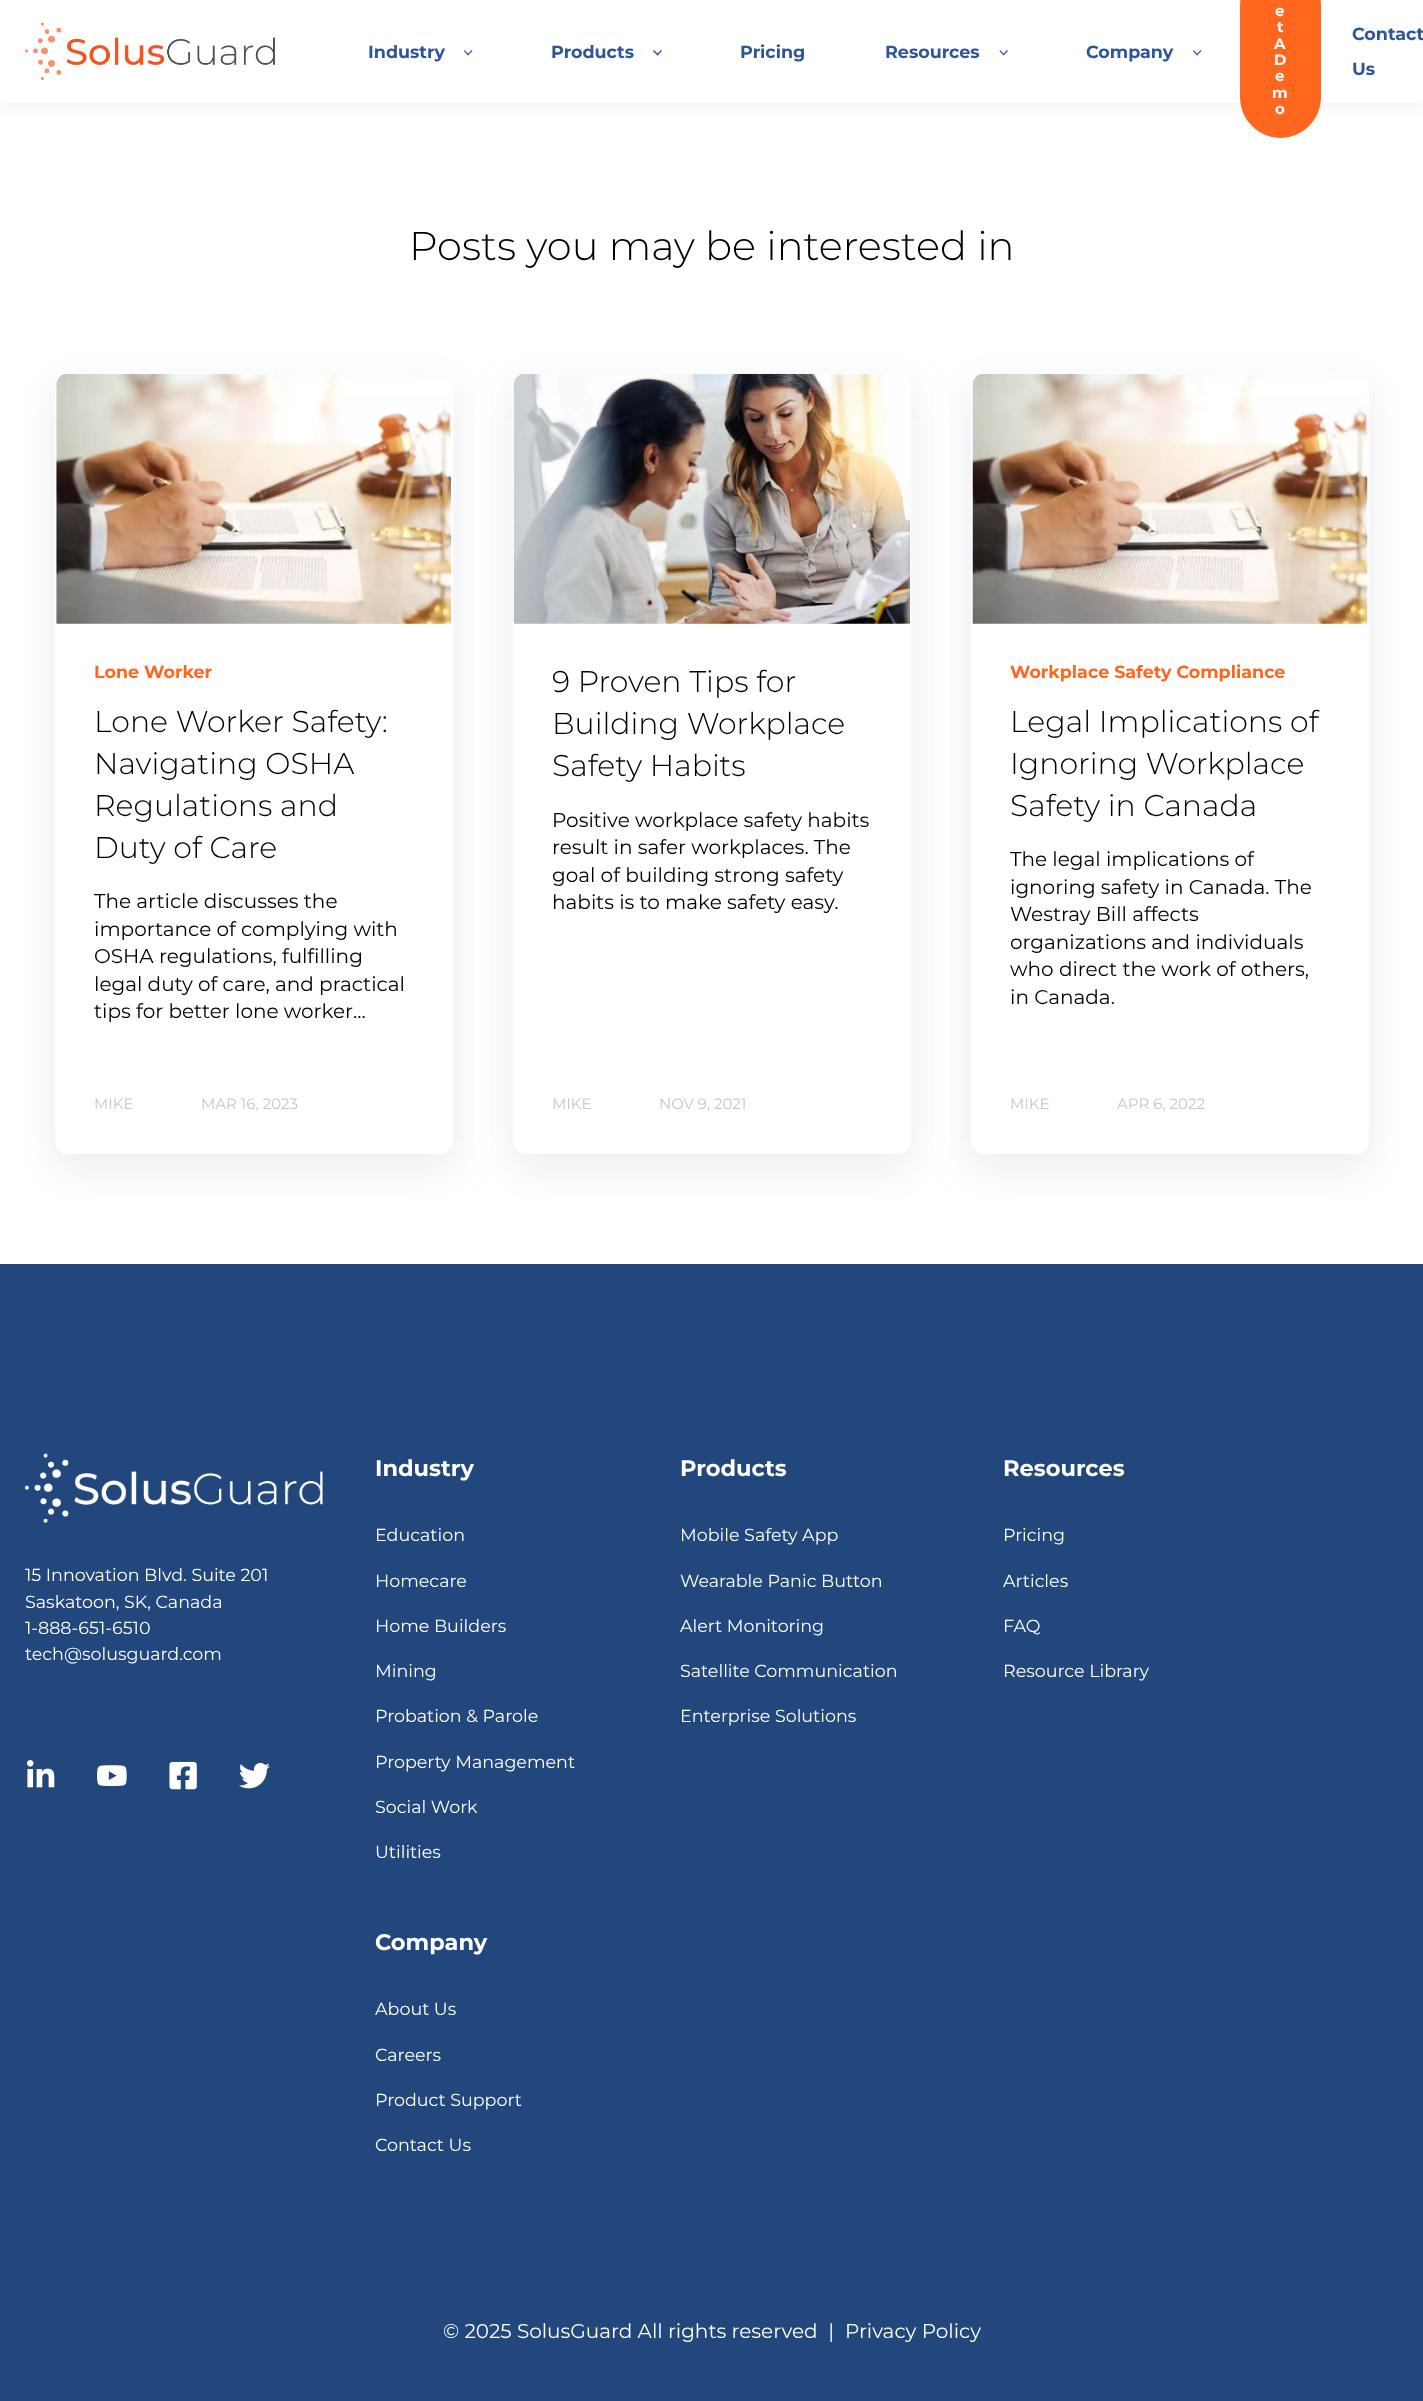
<!DOCTYPE html>
<meta charset="utf-8">
<style>body { margin: 0 } canvas { display: block }</style>
<canvas id="canvas" width="1423" height="2401"></canvas>
<script type="module">
  const canvas = document.getElementById("canvas");
  const g = canvas.getContext("2d");
  g.miterLimit = 4;
  g.fontKerning = "normal";
  function drawText(s, x, y, [font, color]) {
    g.font = font;
    g.fillStyle = color;
    g.fillText(s, x, y);
  }
  function fillBox(x, y, w, h, color) {
    g.fillStyle = color;
    g.fillRect(x, y, w, h);
  }
  async function drawPicture(src, x, y, w, h) {
    const img = new Image();
    img.src = src;
    await img.decode();
    g.drawImage(img, x, y, w, h);
  }

  const s1 = ["bold 17.5px Montserrat", "#2C5697"];
  const s2 = ["bold 15px Montserrat", "#FFFFFF"];
  const s3 = ["300 40px Montserrat", "#000000"];
  const s4 = ["bold 17.5px Montserrat", "#FF671F"];
  const s5 = ["300 30px Montserrat", "#000000"];
  const s6 = ["20px Montserrat", "#000000"];
  const s7 = ["15px Montserrat", "#C6C6C6"];
  const s8 = ["17.5px Montserrat", "#FFFFFF"];
  const s9 = ["bold 22.5px Montserrat", "#FFFFFF"];
  const s10 = ["20px Montserrat", "#FFFFFF"];

  fillBox(0, 0, 1423, 2401, "#FFFFFF");
  g.fillStyle = "rgba(154, 161, 177, 0.1)";
  g.filter = "blur(6px)";
  g.beginPath();
  g.rect(0, 6, 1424, 103);
  g.fill();
  g.filter = "none";
  fillBox(0, 2, 1423, 101, "#FFFFFF");
  await drawPicture("pic1.png", 25, 22, 250, 58);
  drawText("Industry", 368, 58, s1);
  g.beginPath();
  g.moveTo(471.5, 50);
  g.lineTo(472.5, 51);
  g.lineTo(468, 55.5);
  g.lineTo(467.5, 54.5);
  g.closePath();
  g.fill();
  g.beginPath();
  g.moveTo(464.5, 50);
  g.lineTo(469, 54.5);
  g.lineTo(468, 55.5);
  g.lineTo(464, 51);
  g.closePath();
  g.fill();
  drawText("Products", 551, 58, s1);
  g.beginPath();
  g.moveTo(661, 50);
  g.lineTo(662, 51);
  g.lineTo(657.5, 55.5);
  g.lineTo(656.5, 54.5);
  g.closePath();
  g.fill();
  g.beginPath();
  g.moveTo(654, 50);
  g.lineTo(658.5, 54.5);
  g.lineTo(657.5, 55.5);
  g.lineTo(653, 51);
  g.closePath();
  g.fill();
  drawText("Pricing", 740, 58, s1);
  drawText("Resources", 885, 58, s1);
  g.beginPath();
  g.moveTo(1007, 50);
  g.lineTo(1008, 51);
  g.lineTo(1003.5, 55.5);
  g.lineTo(1003, 54.5);
  g.closePath();
  g.fill();
  g.beginPath();
  g.moveTo(1000, 50);
  g.lineTo(1004.5, 54.5);
  g.lineTo(1003.5, 55.5);
  g.lineTo(999.5, 51);
  g.closePath();
  g.fill();
  drawText("Company", 1086, 58, s1);
  g.beginPath();
  g.moveTo(1200.5, 50);
  g.lineTo(1201.5, 51);
  g.lineTo(1197, 55.5);
  g.lineTo(1196.5, 54.5);
  g.closePath();
  g.fill();
  g.beginPath();
  g.moveTo(1193.5, 50);
  g.lineTo(1198, 54.5);
  g.lineTo(1197, 55.5);
  g.lineTo(1193, 51);
  g.closePath();
  g.fill();
  g.fillStyle = "#FF671F";
  g.beginPath();
  g.roundRect(1240.5, -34.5, 80, 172, 40);
  g.fill();
  g.strokeStyle = "#FF671F";
  g.stroke();
  drawText("e", 1275, 16, s2);
  drawText("t", 1277, 32, s2);
  drawText("A", 1274, 49, s2);
  drawText("D", 1274, 65, s2);
  drawText("e", 1275, 81, s2);
  drawText("m", 1272, 98, s2);
  drawText("o", 1275, 114, s2);
  drawText("Contact", 1352, 40, s1);
  drawText("Us", 1352, 75, s1);
  drawText("Posts you may be interested in", 409, 260, s3);
  g.save();
  g.beginPath();
  g.moveTo(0, 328);
  g.lineTo(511, 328);
  g.lineTo(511, 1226);
  g.lineTo(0, 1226);
  g.closePath();
  g.moveTo(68, 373);
  g.lineTo(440, 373);
  g.bezierCurveTo(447, 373, 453, 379, 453, 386);
  g.lineTo(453, 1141);
  g.bezierCurveTo(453, 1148, 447, 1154, 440, 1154);
  g.lineTo(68, 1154);
  g.bezierCurveTo(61, 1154, 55, 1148, 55, 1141);
  g.lineTo(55, 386);
  g.bezierCurveTo(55, 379, 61, 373, 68, 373);
  g.closePath();
  g.clip("evenodd");
  g.fillStyle = "rgba(154, 161, 177, 0.2)";
  g.filter = "blur(19px)";
  g.beginPath();
  g.roundRect(55, 386, 398, 782, 13);
  g.fill();
  g.filter = "none";
  g.restore();
  await drawPicture("pic2.png", 56, 373, 396, 251);
  drawText("Lone Worker", 94, 678, s4);
  drawText("Lone Worker Safety:", 94, 732, s5);
  drawText("Navigating OSHA", 94, 774, s5);
  drawText("Regulations and", 94, 816, s5);
  drawText("Duty of Care", 94, 858, s5);
  drawText("The article discusses the", 94, 908, s6);
  drawText("importance of complying with", 94, 936, s6);
  drawText("OSHA regulations, fulfilling", 94, 963, s6);
  drawText("legal duty of care, and practical", 94, 991, s6);
  drawText("tips for better lone worker...", 94, 1018, s6);
  drawText("MIKE", 94, 1109, s7);
  drawText("MAR 16, 2023", 201, 1109, s7);
  g.save();
  g.beginPath();
  g.moveTo(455, 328);
  g.lineTo(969, 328);
  g.lineTo(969, 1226);
  g.lineTo(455, 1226);
  g.closePath();
  g.moveTo(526, 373);
  g.lineTo(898, 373);
  g.bezierCurveTo(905, 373, 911, 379, 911, 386);
  g.lineTo(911, 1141);
  g.bezierCurveTo(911, 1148, 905, 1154, 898, 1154);
  g.lineTo(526, 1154);
  g.bezierCurveTo(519, 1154, 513, 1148, 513, 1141);
  g.lineTo(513, 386);
  g.bezierCurveTo(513, 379, 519, 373, 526, 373);
  g.closePath();
  g.clip("evenodd");
  g.fillStyle = "rgba(154, 161, 177, 0.2)";
  g.filter = "blur(19px)";
  g.beginPath();
  g.roundRect(513, 386, 398, 782, 13);
  g.fill();
  g.filter = "none";
  g.restore();
  await drawPicture("pic3.png", 513, 373, 397, 251);
  drawText("9 Proven Tips for", 552, 692, s5);
  drawText("Building Workplace", 552, 734, s5);
  drawText("Safety Habits", 552, 776, s5);
  drawText("Positive workplace safety habits", 552, 827, s6);
  drawText("result in safer workplaces. The", 552, 854, s6);
  drawText("goal of building strong safety", 552, 882, s6);
  drawText("habits is to make safety easy.", 552, 909, s6);
  drawText("MIKE", 552, 1109, s7);
  drawText("NOV 9, 2021", 659, 1109, s7);
  g.save();
  g.beginPath();
  g.moveTo(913, 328);
  g.lineTo(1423, 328);
  g.lineTo(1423, 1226);
  g.lineTo(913, 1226);
  g.closePath();
  g.moveTo(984, 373);
  g.lineTo(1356, 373);
  g.bezierCurveTo(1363, 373, 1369, 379, 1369, 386);
  g.lineTo(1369, 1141);
  g.bezierCurveTo(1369, 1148, 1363, 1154, 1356, 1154);
  g.lineTo(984, 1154);
  g.bezierCurveTo(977, 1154, 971, 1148, 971, 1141);
  g.lineTo(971, 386);
  g.bezierCurveTo(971, 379, 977, 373, 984, 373);
  g.closePath();
  g.clip("evenodd");
  g.fillStyle = "rgba(154, 161, 177, 0.2)";
  g.filter = "blur(19px)";
  g.beginPath();
  g.roundRect(971, 386, 398, 782, 13);
  g.fill();
  g.filter = "none";
  g.restore();
  await drawPicture("pic4.png", 972, 373, 396, 251);
  drawText("Workplace Safety Compliance", 1010, 678, s4);
  drawText("Legal Implications of", 1010, 732, s5);
  drawText("Ignoring Workplace", 1010, 774, s5);
  drawText("Safety in Canada", 1010, 816, s5);
  drawText("The legal implications of", 1010, 866, s6);
  drawText("ignoring safety in Canada. The", 1010, 894, s6);
  drawText("Westray Bill affects", 1010, 921, s6);
  drawText("organizations and individuals", 1010, 949, s6);
  drawText("who direct the work of others,", 1010, 976, s6);
  drawText("in Canada.", 1010, 1004, s6);
  drawText("MIKE", 1010, 1109, s7);
  drawText("APR 6, 2022", 1117, 1109, s7);
  fillBox(0, 1264, 1423, 1137, "#22477D");
  await drawPicture("pic5.png", 25, 1453, 298, 70);
  drawText("15 Innovation Blvd. Suite 201", 25, 1581, s8);
  drawText("Saskatoon, SK, Canada", 25, 1608, s8);
  drawText("1-888-651-6510", 25, 1634, s8);
  drawText("tech@solusguard.com", 25, 1660, s8);
  await drawPicture("pic6.png", 27, 1760, 28, 28);
  await drawPicture("pic7.png", 97, 1765, 30, 22);
  await drawPicture("pic8.png", 169, 1761, 28, 29);
  await drawPicture("pic9.png", 239, 1762, 31, 27);
  drawText("Industry", 375, 1476, s9);
  drawText("Education", 375, 1541, s8);
  drawText("Homecare", 375, 1587, s8);
  drawText("Home Builders", 375, 1632, s8);
  drawText("Mining", 375, 1677, s8);
  drawText("Probation & Parole", 375, 1722, s8);
  drawText("Property Management", 375, 1768, s8);
  drawText("Social Work", 375, 1813, s8);
  drawText("Utilities", 375, 1858, s8);
  drawText("Products", 680, 1476, s9);
  drawText("Mobile Safety App", 680, 1541, s8);
  drawText("Wearable Panic Button", 680, 1587, s8);
  drawText("Alert Monitoring", 680, 1632, s8);
  drawText("Satellite Communication", 680, 1677, s8);
  drawText("Enterprise Solutions", 680, 1722, s8);
  drawText("Resources", 1003, 1476, s9);
  drawText("Pricing", 1003, 1541, s8);
  drawText("Articles", 1003, 1587, s8);
  drawText("FAQ", 1003, 1632, s8);
  drawText("Resource Library", 1003, 1677, s8);
  drawText("Company", 375, 1950, s9);
  drawText("About Us", 375, 2015, s8);
  drawText("Careers", 375, 2061, s8);
  drawText("Product Support", 375, 2106, s8);
  drawText("Contact Us", 375, 2151, s8);
  drawText("© 2025 SolusGuard All rights reserved  |", 443, 2338, s10);
  drawText("Privacy Policy", 845, 2338, s10);
</script>
